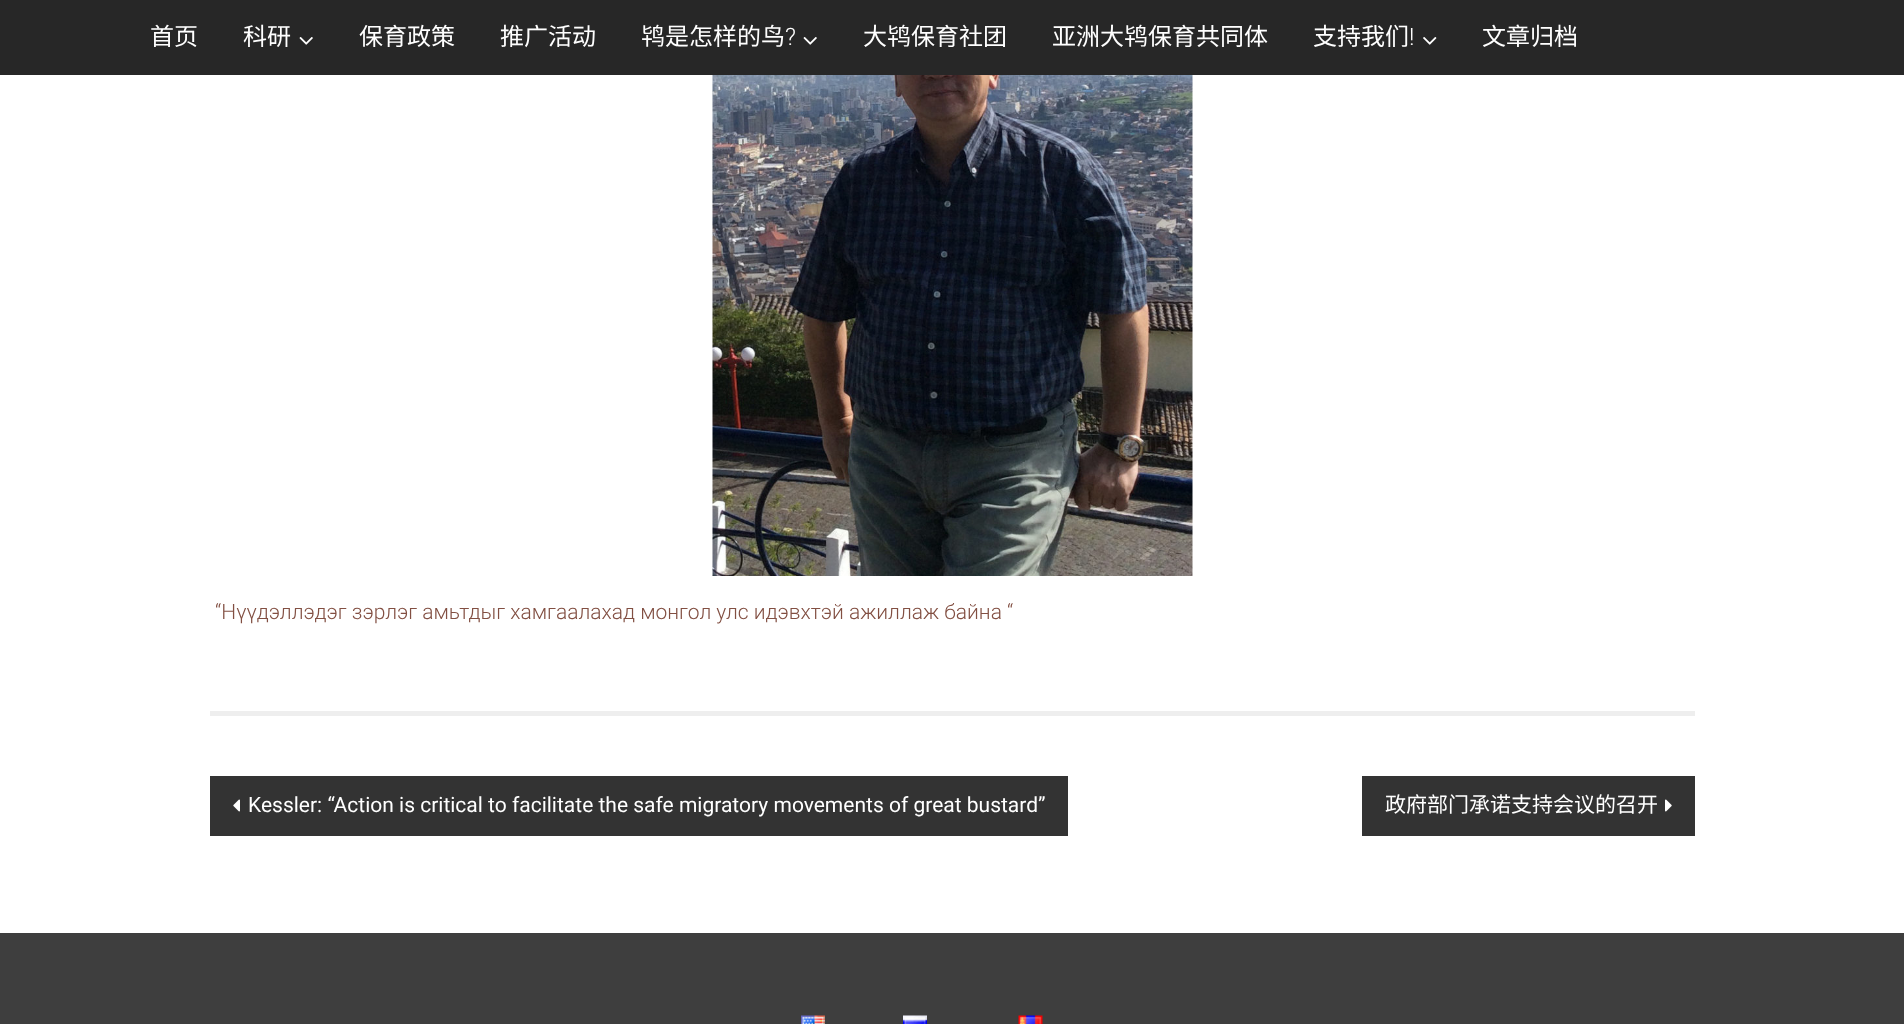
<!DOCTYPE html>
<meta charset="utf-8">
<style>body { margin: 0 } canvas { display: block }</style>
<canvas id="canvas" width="1904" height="1024"></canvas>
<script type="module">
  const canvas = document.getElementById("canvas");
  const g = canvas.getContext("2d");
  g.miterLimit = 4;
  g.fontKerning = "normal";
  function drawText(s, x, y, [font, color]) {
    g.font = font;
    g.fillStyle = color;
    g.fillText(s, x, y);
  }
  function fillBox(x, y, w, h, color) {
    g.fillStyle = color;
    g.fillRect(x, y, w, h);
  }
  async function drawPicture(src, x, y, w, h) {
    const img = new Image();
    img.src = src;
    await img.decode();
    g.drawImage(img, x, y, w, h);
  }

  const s1 = ["24px Noto Sans CJK SC", "#FFFFFF"];
  const s2 = ["300 24px Roboto", "#FFFFFF"];
  const s3 = ["300 21px Roboto", "#824F42"];
  const s4 = ["21px Roboto", "#FFFFFF"];
  const s5 = ["21px Noto Sans CJK SC", "#FFFFFF"];

  fillBox(0, 0, 1904, 1024, "#FFFFFF");
  fillBox(0, 0, 1904, 75, "#272727");
  drawText("首页", 150, 45, s1);
  drawText("科研", 243, 45, s1);
  await drawPicture("pic1.png", 299, 37, 14, 8);
  drawText("保育政策", 359, 45, s1);
  drawText("推广活动", 500, 45, s1);
  drawText("鸨是怎样的鸟", 641, 45, s1);
  drawText("?", 785, 45, s2);
  await drawPicture("pic1.png", 803, 37, 14, 8);
  drawText("大鸨保育社团", 863, 45, s1);
  drawText("亚洲大鸨保育共同体", 1052, 45, s1);
  drawText("支持我们", 1313, 45, s1);
  drawText("!", 1409, 45, s2);
  await drawPicture("pic2.png", 1423, 37, 14, 8);
  drawText("文章归档", 1482, 45, s1);
  fillBox(210, 711, 1485, 5, "#EEEEEE");
  await drawPicture("pic3.png", 712, 75, 481, 501);
  drawText("“Нүүдэллэдэг зэрлэг амьтдыг хамгаалахад монгол улс идэвхтэй ажиллаж байна “", 215, 619, s3);
  fillBox(210, 776, 858, 60, "#333333");
  await drawPicture("pic4.png", 233, 799, 7, 13);
  drawText("Kessler: “Action is critical to facilitate the safe migratory movements of great bustard”", 248, 812, s4);
  fillBox(1362, 776, 333, 60, "#333333");
  drawText("政府部门承诺支持会议的召开", 1385, 812, s5);
  await drawPicture("pic5.png", 1665, 799, 7, 13);
  fillBox(0, 933, 1904, 91, "#3E3E3E");
  await drawPicture("pic6.png", 801, 1015, 24, 9);
  await drawPicture("pic7.png", 903, 1015, 24, 9);
  await drawPicture("pic8.png", 1018, 1015, 25, 9);
</script>
